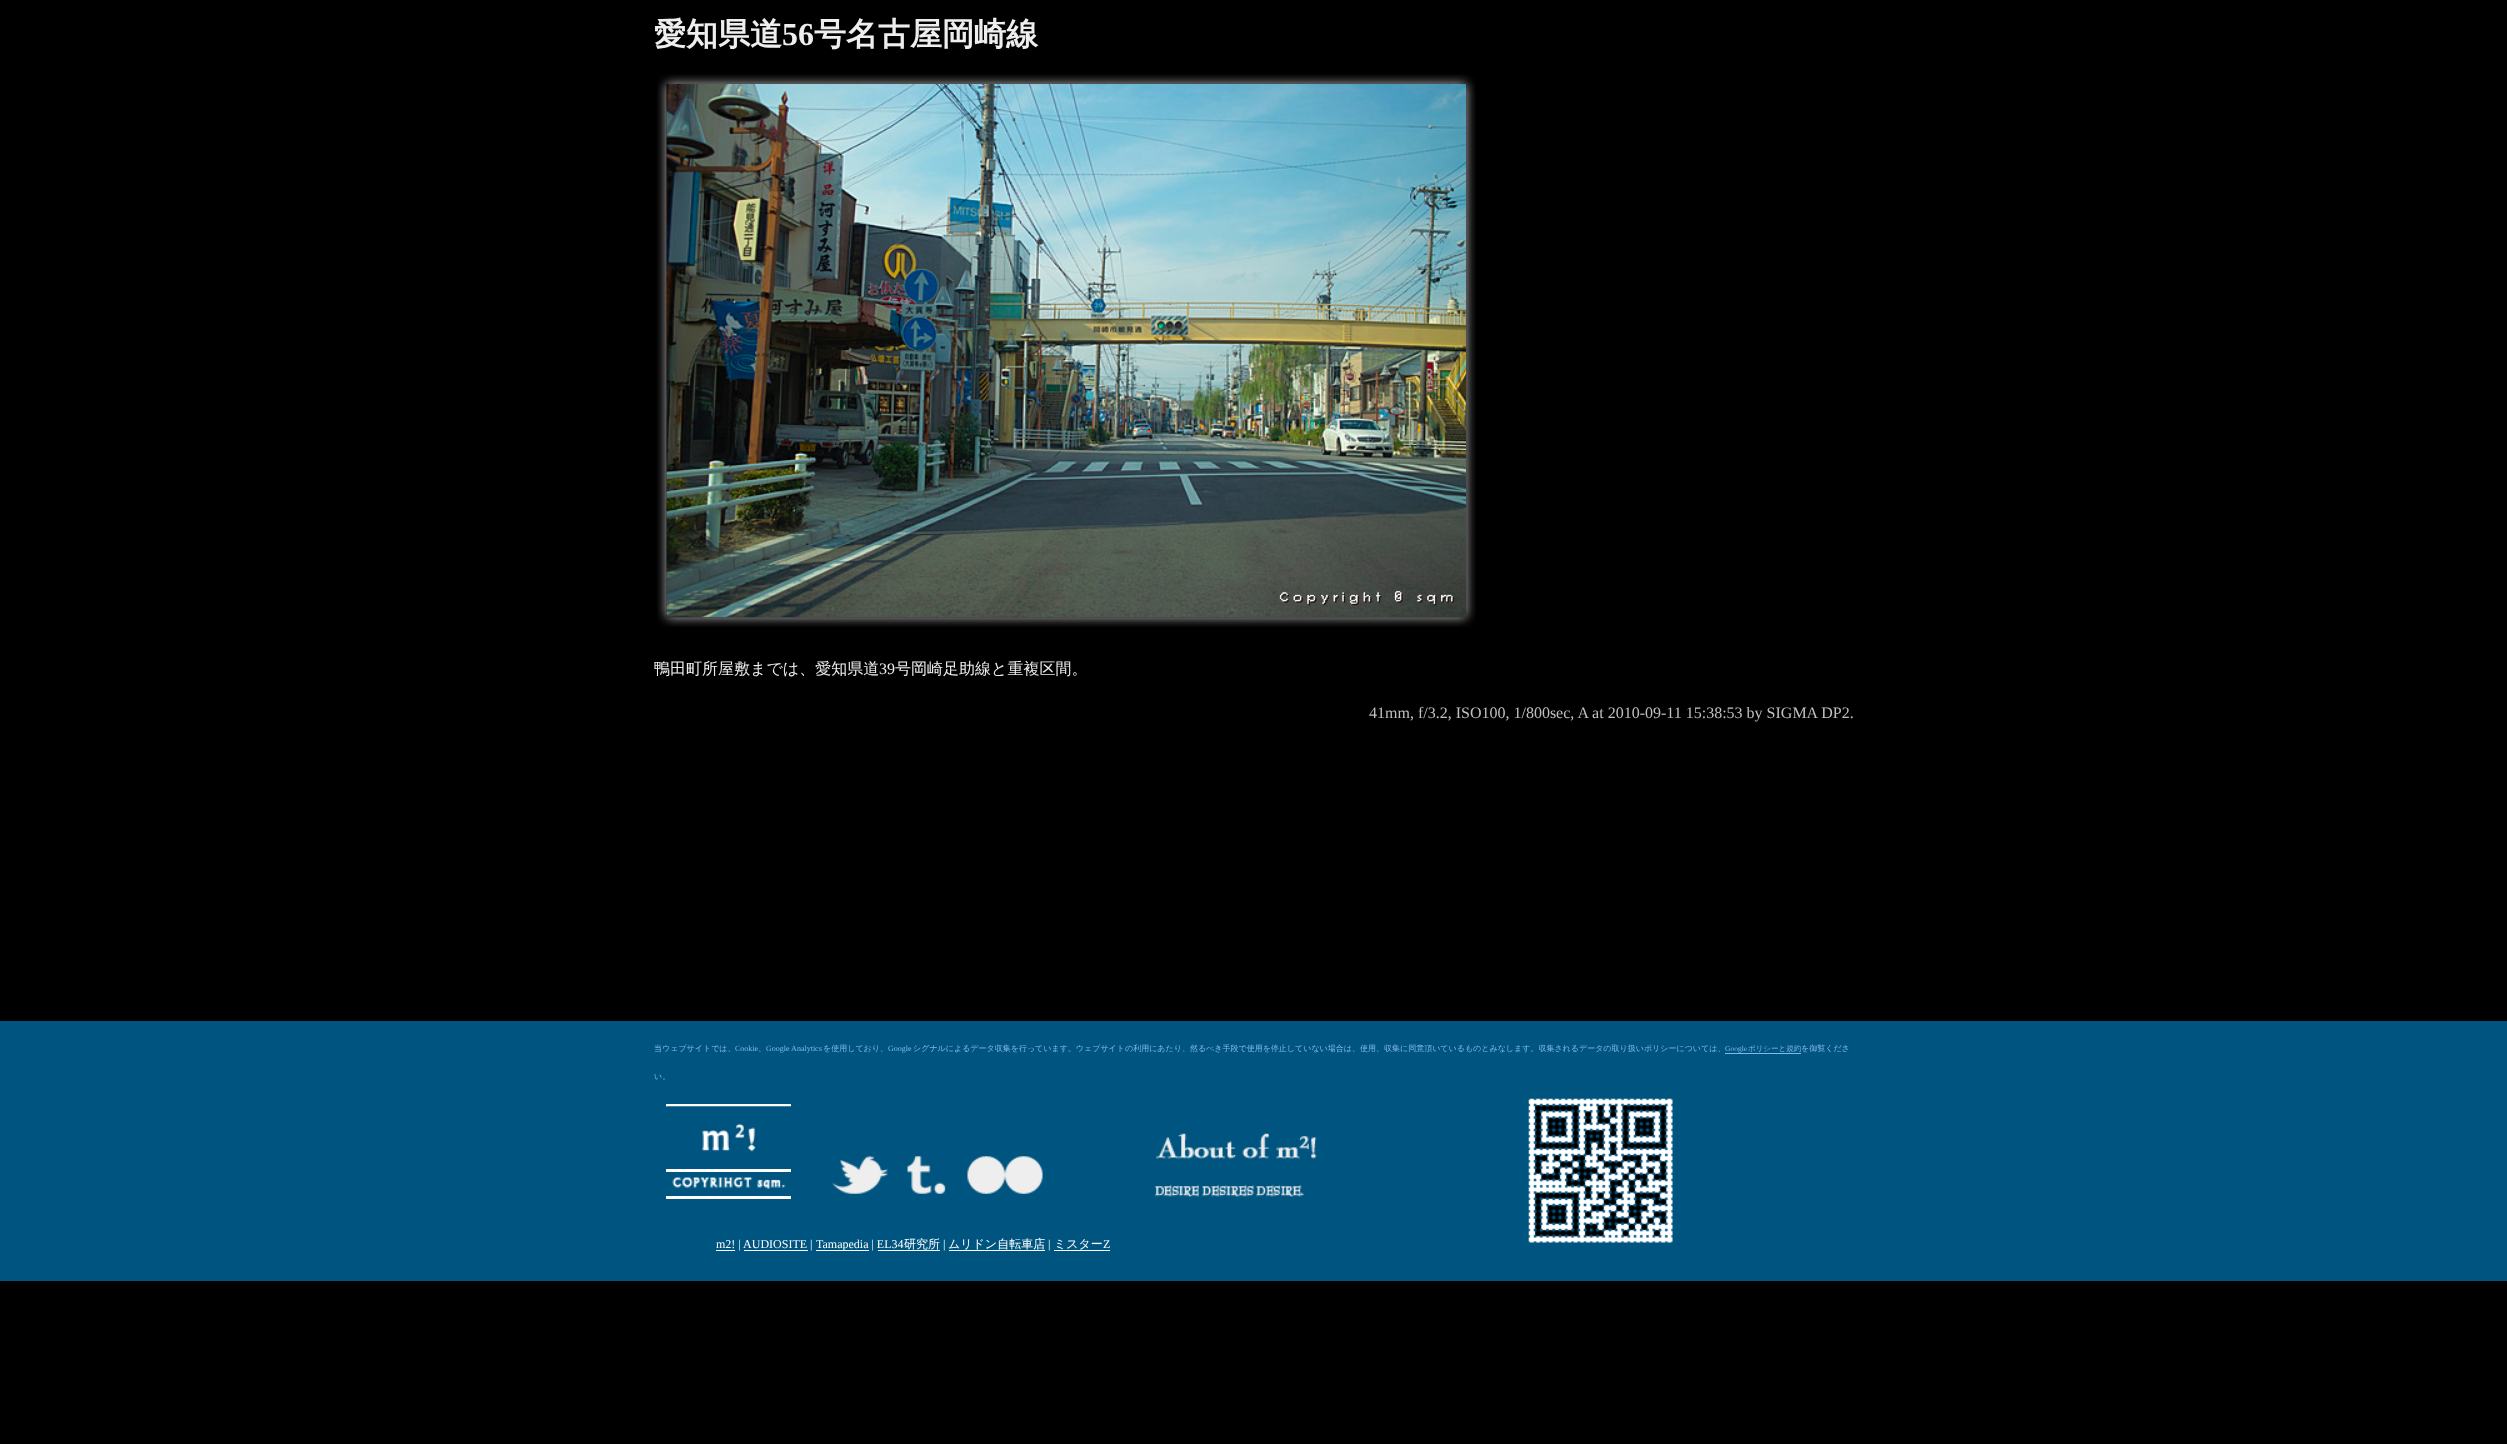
<!DOCTYPE html>
<meta charset="utf-8">
<style>body { margin: 0 } canvas { display: block }</style>
<canvas id="canvas" width="2507" height="1444"></canvas>
<script type="module">
  const canvas = document.getElementById("canvas");
  const g = canvas.getContext("2d");
  g.miterLimit = 4;
  g.fontKerning = "normal";
  function drawText(s, x, y, [font, color]) {
    g.font = font;
    g.fillStyle = color;
    g.fillText(s, x, y);
  }
  function fillBox(x, y, w, h, color) {
    g.fillStyle = color;
    g.fillRect(x, y, w, h);
  }
  async function drawPicture(src, x, y, w, h) {
    const img = new Image();
    img.src = src;
    await img.decode();
    g.drawImage(img, x, y, w, h);
  }

  const s1 = ["bold 32px WenQuanYi Zen Hei", "#EEEEEE"];
  const s2 = ["bold 32px Liberation Serif", "#EEEEEE"];
  const s3 = ["500 16px WenQuanYi Zen Hei", "#EEEEEE"];
  const s4 = ["16px Liberation Serif", "#EEEEEE"];
  const s5 = ["16px Liberation Serif", "#C0C0C0"];
  const s6 = ["500 8px WenQuanYi Zen Hei", "#81B9EA"];
  const s7 = ["8px Liberation Serif", "#81B9EA"];
  const s8 = ["7.5px Liberation Serif", "#81B9EA"];
  const s9 = ["500 7.5px WenQuanYi Zen Hei", "#81B9EA"];
  const s10 = ["12px Liberation Serif", "#FFFFFF"];
  const s11 = ["500 12px WenQuanYi Zen Hei", "#FFFFFF"];

  fillBox(0, 0, 2507, 1444, "#000000");
  drawText("愛知県道", 654, 45, s1);
  drawText("56", 782, 45, s2);
  drawText("号名古屋岡崎線", 814, 45, s1);
  await drawPicture("pic1.png", 657, 74, 819, 553);
  await drawPicture("pic2.png", 666, 83, 801, 535);
  drawText("鴨田町所屋敷までは、愛知県道", 654, 674, s3);
  drawText("39", 879, 674, s4);
  drawText("号岡崎足助線と重複区間。", 895, 674, s3);
  drawText("41mm, f/3.2, ISO100, 1/800sec, A at 2010-09-11 15:38:53 by SIGMA DP2.", 1369, 718, s5);
  fillBox(0, 1021, 2507, 260, "#005580");
  drawText("当ウェブサイトでは、", 654, 1051, s6);
  drawText("Cookie", 735, 1051, s7);
  drawText("、", 758, 1051, s6);
  drawText("Google Analytics", 766, 1051, s7);
  drawText("を使用しており、", 823, 1051, s6);
  drawText("Google", 888, 1051, s7);
  drawText("シグナルによるデータ収集を行っています。ウェブサイトの利用にあたり、然るべき手段で使用を停止していない場合は、使用、収集に同意頂いているものとみなします。収集されるデータの取り扱いポリシーについては、", 913, 1051, s6);
  drawText("Google", 1725, 1051, s8);
  fillBox(1725, 1053, 76, 1, "#81B9EA");
  drawText("ポリシーと規約", 1748, 1051, s9);
  drawText("を御覧くださ", 1801, 1051, s6);
  drawText("い。", 654, 1079, s6);
  fillBox(666, 1104, 125, 3, "#FFFFFF");
  fillBox(666, 1169, 125, 3, "#FFFFFF");
  await drawPicture("pic3.png", 666, 1106, 125, 47);
  await drawPicture("pic4.png", 832, 1156, 56, 38);
  await drawPicture("pic5.png", 907, 1156, 39, 38);
  await drawPicture("pic6.png", 967, 1156, 76, 38);
  await drawPicture("pic7.png", 1154, 1133, 163, 64);
  await drawPicture("pic8.png", 1528, 1098, 145, 145);
  fillBox(666, 1196, 125, 3, "#FFFFFF");
  await drawPicture("pic9.png", 672, 1177, 114, 12);
  fillBox(716, 1250, 19, 1, "#FFFFFF");
  drawText("m2! | AUDIOSITE |", 716, 1248, s10);
  fillBox(816, 1250, 53, 1, "#FFFFFF");
  drawText("Tamapedia | EL34", 816, 1248, s10);
  drawText("研究所", 904, 1248, s11);
  fillBox(878, 1250, 62, 1, "#FFFFFF");
  drawText("|", 943, 1248, s10);
  drawText("ムリドン自転車店", 948, 1248, s11);
  fillBox(949, 1250, 96, 1, "#FFFFFF");
  drawText("|", 1048, 1248, s10);
  drawText("ミスター", 1054, 1248, s11);
  fillBox(1054, 1250, 56, 1, "#FFFFFF");
  drawText("Z", 1103, 1248, s10);
  fillBox(744, 1250, 64, 1, "#FFFFFF");
</script>
